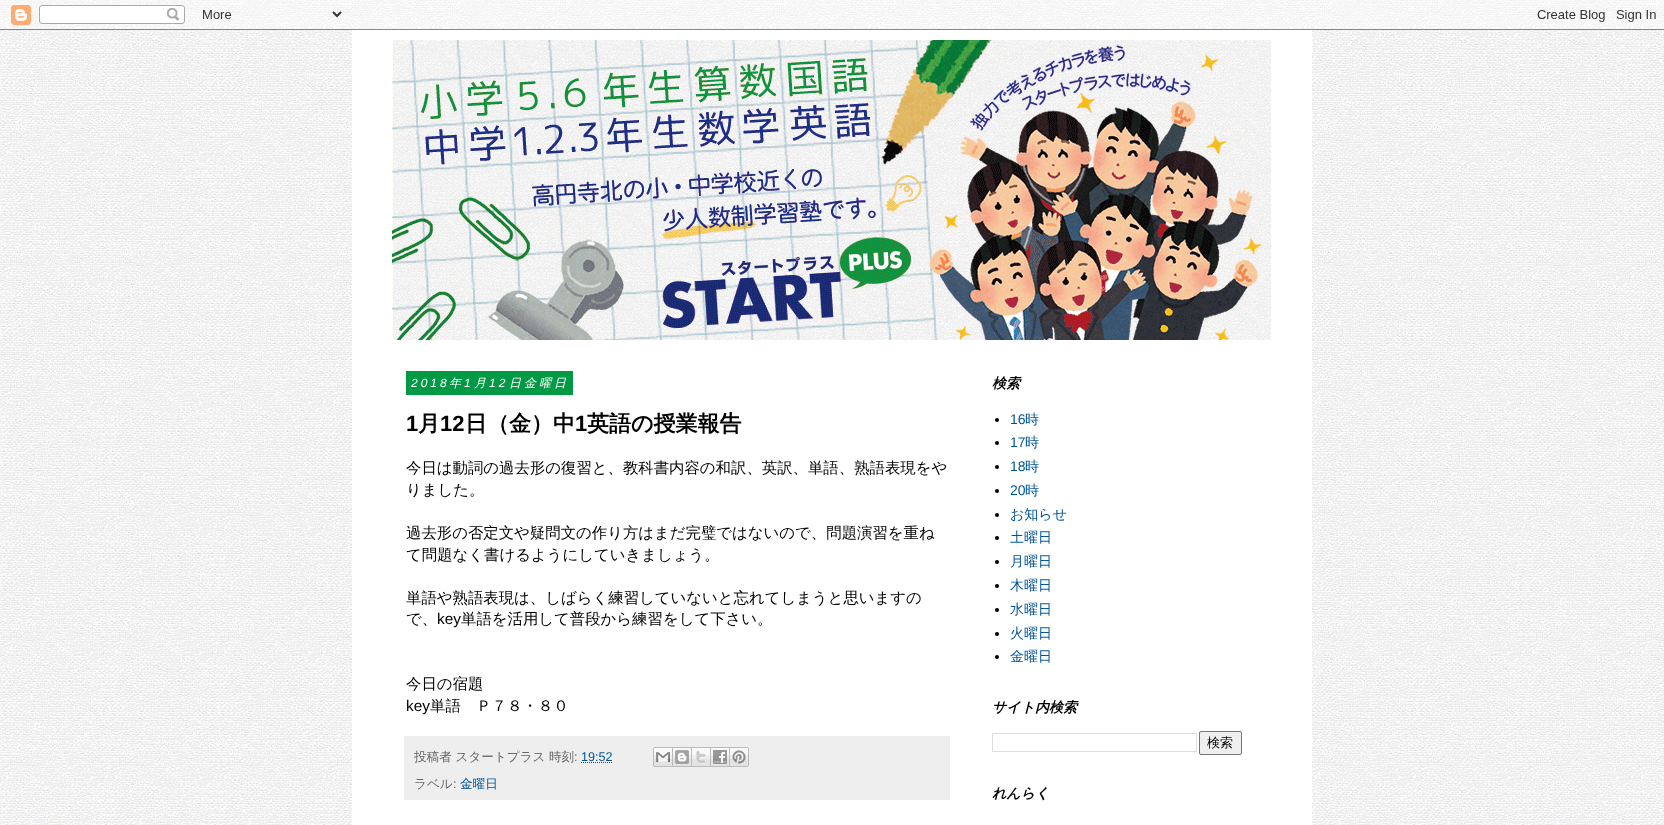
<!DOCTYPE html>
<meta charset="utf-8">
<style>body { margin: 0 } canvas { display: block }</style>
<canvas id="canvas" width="1664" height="825"></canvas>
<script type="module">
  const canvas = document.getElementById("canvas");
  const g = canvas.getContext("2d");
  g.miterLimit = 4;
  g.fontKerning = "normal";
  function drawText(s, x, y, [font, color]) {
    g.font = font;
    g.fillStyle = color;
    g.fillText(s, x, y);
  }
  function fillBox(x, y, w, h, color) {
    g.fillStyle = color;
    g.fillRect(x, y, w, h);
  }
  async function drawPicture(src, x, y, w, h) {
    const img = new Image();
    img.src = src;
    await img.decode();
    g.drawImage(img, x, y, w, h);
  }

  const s1 = ["italic 12px Liberation Sans", "#FFFFFF"];
  const s2 = ["italic 500 12px WenQuanYi Zen Hei", "#FFFFFF"];
  const s3 = ["bold 22px Liberation Sans", "#000000"];
  const s4 = ["bold 22px WenQuanYi Zen Hei", "#000000"];
  const s5 = ["500 15.4px WenQuanYi Zen Hei", "#000000"];
  const s6 = ["15.4px Liberation Sans", "#000000"];
  const s7 = ["500 12.6px WenQuanYi Zen Hei", "#666666"];
  const s8 = ["12.6px Liberation Sans", "#666666"];
  const s9 = ["12.6px Liberation Sans", "#005599"];
  const s10 = ["500 12.6px WenQuanYi Zen Hei", "#005599"];
  const s11 = ["italic bold 14px WenQuanYi Zen Hei", "#000000"];
  const s12 = ["14px Liberation Sans", "#005599"];
  const s13 = ["500 14px WenQuanYi Zen Hei", "#005599"];
  const s14 = ["500 13px WenQuanYi Zen Hei", "#000000"];

  fillBox(0, 0, 1664, 825, "#FFFFFF");
  await drawPicture("pic1.png", 0, 0, 1664, 825);
  await drawPicture("pic2.png", 0, 0, 1664, 30);
  fillBox(352, 30, 960, 795, "#FFFFFF");
  await drawPicture("pic3.png", 392, 40, 880, 300);
  fillBox(406, 371, 167, 24, "#009944");
  g.letterSpacing = "3px";
  drawText("2018", 411, 387, s1);
  drawText("年", 449, 387, s2);
  drawText("1", 464, 387, s1);
  drawText("月", 474, 387, s2);
  drawText("12", 489, 387, s1);
  drawText("日金曜日", 509, 387, s2);
  g.letterSpacing = "0px";
  drawText("1", 406, 431, s3);
  drawText("月", 418, 431, s4);
  drawText("12", 440, 431, s3);
  drawText("日（金）中", 465, 431, s4);
  drawText("1", 575, 431, s3);
  drawText("英語の授業報告", 587, 431, s4);
  drawText("今日は動詞の過去形の復習と、教科書内容の和訳、英訳、単語、熟語表現をや", 406, 473, s5);
  drawText("りました。", 406, 495, s5);
  drawText("過去形の否定文や疑問文の作り方はまだ完璧ではないので、問題演習を重ね", 406, 538, s5);
  drawText("て問題なく書けるようにしていきましょう。", 406, 560, s5);
  drawText("単語や熟語表現は、しばらく練習していないと忘れてしまうと思いますの", 406, 603, s5);
  drawText("で、", 406, 624, s5);
  drawText("key", 437, 624, s6);
  drawText("単語を活用して普段から練習をして下さい。", 461, 624, s5);
  drawText("今日の宿題", 406, 689, s5);
  drawText("key", 406, 711, s6);
  drawText("単語　Ｐ７８・８０", 430, 711, s5);
  fillBox(404, 736, 546, 64, "#EEEEEE");
  drawText("投稿者 スタートプラス", 414, 761, s7);
  drawText("時刻", 549, 761, s7);
  drawText(":", 574, 761, s8);
  drawText("19:52", 581, 761, s9);
  g.beginPath();
  g.moveTo(581, 762.5);
  g.lineTo(612.5, 762.5);
  g.strokeStyle = "#005599";
  g.setLineDash([1, 1]);
  g.stroke();
  await drawPicture("pic4.png", 653, 747, 20, 20);
  await drawPicture("pic5.png", 673, 747, 19, 20);
  await drawPicture("pic6.png", 692, 747, 19, 20);
  await drawPicture("pic7.png", 711, 747, 19, 20);
  await drawPicture("pic8.png", 730, 747, 19, 20);
  drawText("ラベル", 414, 788, s7);
  drawText(":", 453, 788, s8);
  drawText("金曜日", 460, 788, s10);
  drawText("検索", 992, 388, s11);
  g.beginPath();
  g.arc(997, 420, 2, 0, Math.PI * 2);
  g.fill();
  drawText("16", 1010, 424, s12);
  drawText("時", 1025, 424, s13);
  g.fillStyle = "#000000";
  g.beginPath();
  g.arc(997, 443, 2, 0, Math.PI * 2);
  g.fill();
  drawText("17", 1010, 447, s12);
  drawText("時", 1025, 447, s13);
  g.fillStyle = "#000000";
  g.beginPath();
  g.arc(997, 467, 2, 0, Math.PI * 2);
  g.fill();
  drawText("18", 1010, 471, s12);
  drawText("時", 1025, 471, s13);
  g.fillStyle = "#000000";
  g.beginPath();
  g.arc(997, 491, 2, 0, Math.PI * 2);
  g.fill();
  drawText("20", 1010, 495, s12);
  drawText("時", 1025, 495, s13);
  g.fillStyle = "#000000";
  g.beginPath();
  g.arc(997, 515, 2, 0, Math.PI * 2);
  g.fill();
  drawText("お知らせ", 1010, 519, s13);
  g.fillStyle = "#000000";
  g.beginPath();
  g.arc(997, 538, 2, 0, Math.PI * 2);
  g.fill();
  drawText("土曜日", 1010, 542, s13);
  g.fillStyle = "#000000";
  g.beginPath();
  g.arc(997, 562, 2, 0, Math.PI * 2);
  g.fill();
  drawText("月曜日", 1010, 566, s13);
  g.fillStyle = "#000000";
  g.beginPath();
  g.arc(997, 586, 2, 0, Math.PI * 2);
  g.fill();
  drawText("木曜日", 1010, 590, s13);
  g.fillStyle = "#000000";
  g.beginPath();
  g.arc(997, 610, 2, 0, Math.PI * 2);
  g.fill();
  drawText("水曜日", 1010, 614, s13);
  g.fillStyle = "#000000";
  g.beginPath();
  g.arc(997, 634, 2, 0, Math.PI * 2);
  g.fill();
  drawText("火曜日", 1010, 638, s13);
  g.fillStyle = "#000000";
  g.beginPath();
  g.arc(997, 657, 2, 0, Math.PI * 2);
  g.fill();
  drawText("金曜日", 1010, 661, s13);
  drawText("サイト内検索", 992, 712, s11);
  g.strokeStyle = "#DDDDDD";
  g.setLineDash([]);
  g.strokeRect(992.5, 733.5, 204, 18);
  g.fillStyle = "#EFEFEF";
  g.beginPath();
  g.roundRect(1199.5, 731.5, 42, 23, 1.5);
  g.fill();
  g.strokeStyle = "#767676";
  g.stroke();
  drawText("検索", 1207, 747, s14);
  drawText("れんらく", 992, 798, s11);
</script>
